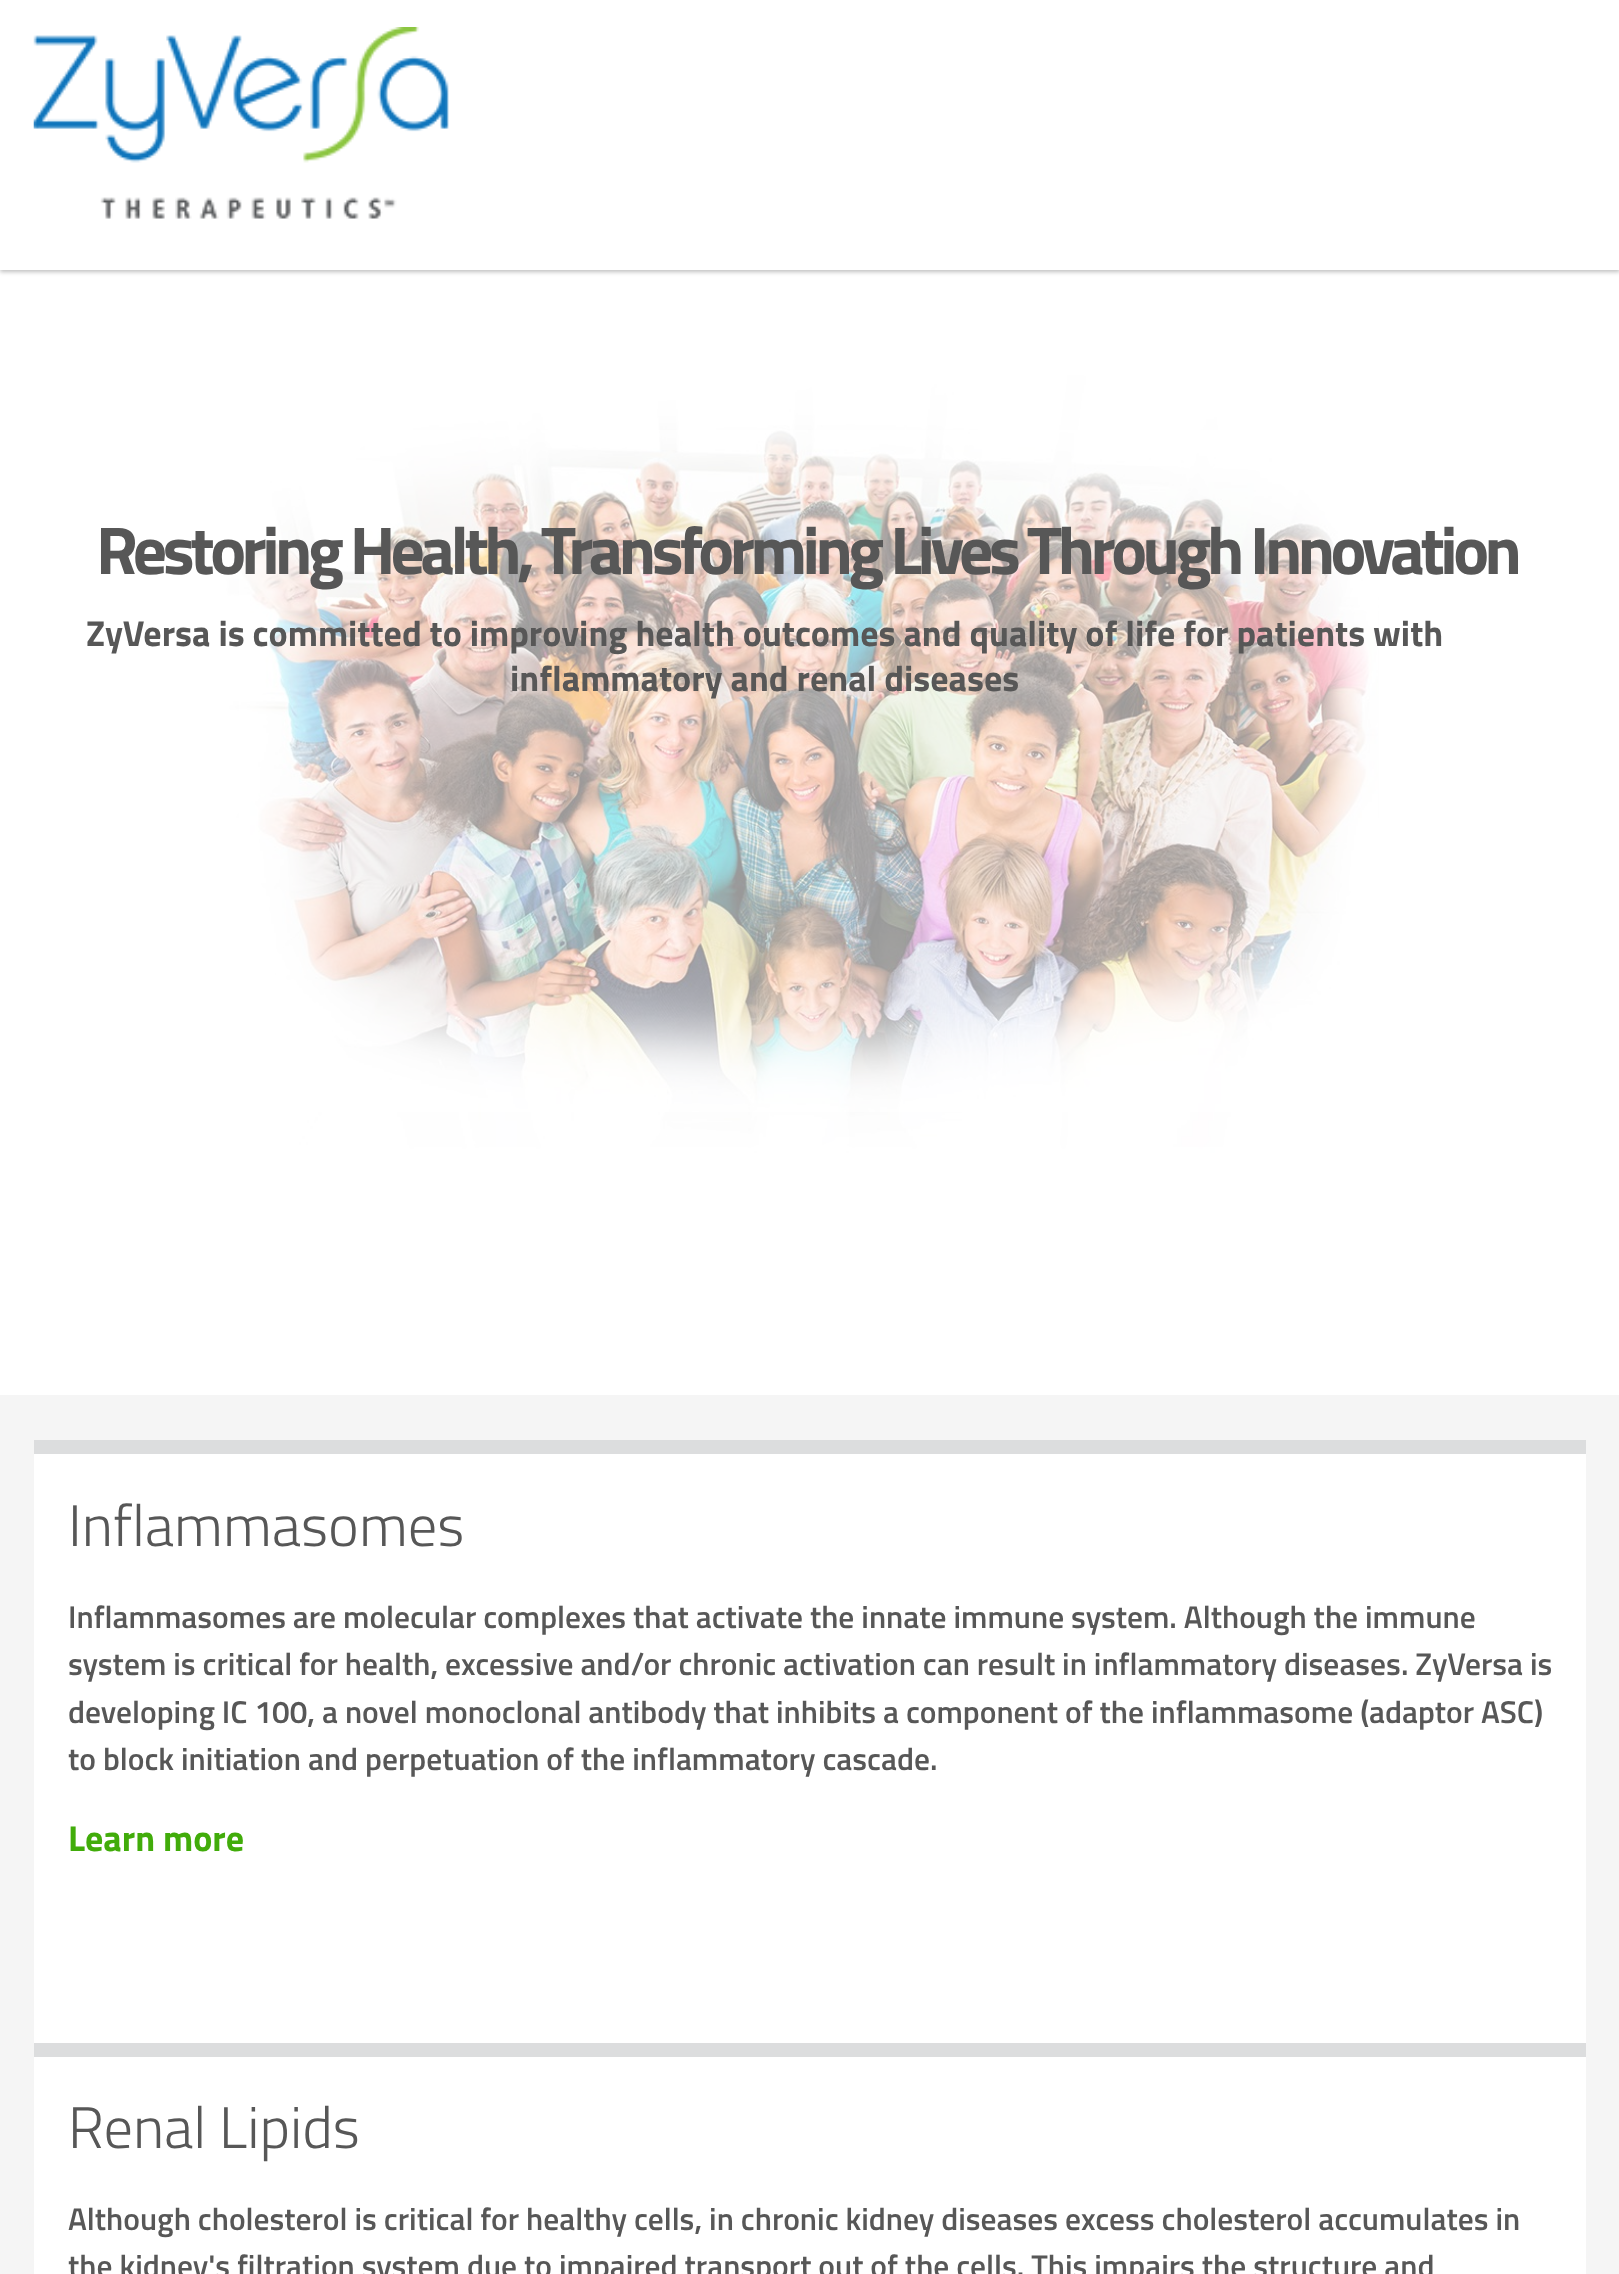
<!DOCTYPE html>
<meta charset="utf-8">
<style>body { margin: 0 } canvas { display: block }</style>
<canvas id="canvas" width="1619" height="2274"></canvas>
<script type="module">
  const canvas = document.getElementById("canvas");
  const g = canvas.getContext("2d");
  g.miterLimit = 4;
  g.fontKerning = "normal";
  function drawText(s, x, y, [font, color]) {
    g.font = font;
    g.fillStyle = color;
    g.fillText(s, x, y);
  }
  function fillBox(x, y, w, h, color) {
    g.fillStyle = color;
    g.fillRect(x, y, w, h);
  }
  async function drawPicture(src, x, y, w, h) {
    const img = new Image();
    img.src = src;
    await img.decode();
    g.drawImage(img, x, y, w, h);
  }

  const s1 = ["bold 67.5px Titillium Web", "#575757"];
  const s2 = ["bold 36px Titillium Web", "#575757"];
  const s3 = ["300 58.5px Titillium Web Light", "#575757"];
  const s4 = ["600 31.5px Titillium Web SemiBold", "#575757"];
  const s5 = ["bold 36px Titillium Web", "#41AC0A"];

  fillBox(0, 0, 1619, 2274, "#F5F5F5");
  await drawPicture("pic2.png", 0, 270, 1619, 1125);
  g.fillStyle = "rgba(0, 0, 1, 0.25)";
  g.filter = "blur(2px)";
  g.beginPath();
  g.rect(0, 2, 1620, 270);
  g.fill();
  g.filter = "none";
  fillBox(0, 0, 1619, 270, "#FFFFFF");
  await drawPicture("pic1.png", 33, 27, 416, 192);
  fillBox(239, 430, 1139, 682, "rgba(255, 255, 255, 0.6)");
  g.letterSpacing = "-4.5px";
  drawText("Restoring Health, Transforming Lives Through Innovation", 96, 574, s1);
  g.letterSpacing = "0px";
  drawText("ZyVersa is committed to improving health outcomes and quality of life for patients with", 86, 646, s2);
  drawText("inflammatory and renal diseases", 510, 691, s2);
  fillBox(34, 1454, 1552, 589, "#FFFFFF");
  fillBox(34, 1440, 1552, 14, "#DCDDDE");
  drawText("Inflammasomes", 68, 1546, s3);
  drawText("Inflammasomes are molecular complexes that activate the innate immune system. Although the immune", 68, 1628, s4);
  drawText("system is critical for health, excessive and/or chronic activation can result in inflammatory diseases. ZyVersa is", 68, 1675, s4);
  drawText("developing IC 100, a novel monoclonal antibody that inhibits a component of the inflammasome (adaptor ASC)", 68, 1723, s4);
  drawText("to block initiation and perpetuation of the inflammatory cascade.", 68, 1770, s4);
  drawText("Learn more", 68, 1851, s5);
  fillBox(34, 2057, 1552, 217, "#FFFFFF");
  fillBox(34, 2043, 1552, 14, "#DCDDDE");
  drawText("Renal Lipids", 68, 2148, s3);
  drawText("Although cholesterol is critical for healthy cells, in chronic kidney diseases excess cholesterol accumulates in", 68, 2230, s4);
  drawText("the kidney's filtration system due to impaired transport out of the cells. This impairs the structure and", 68, 2277, s4);
</script>
